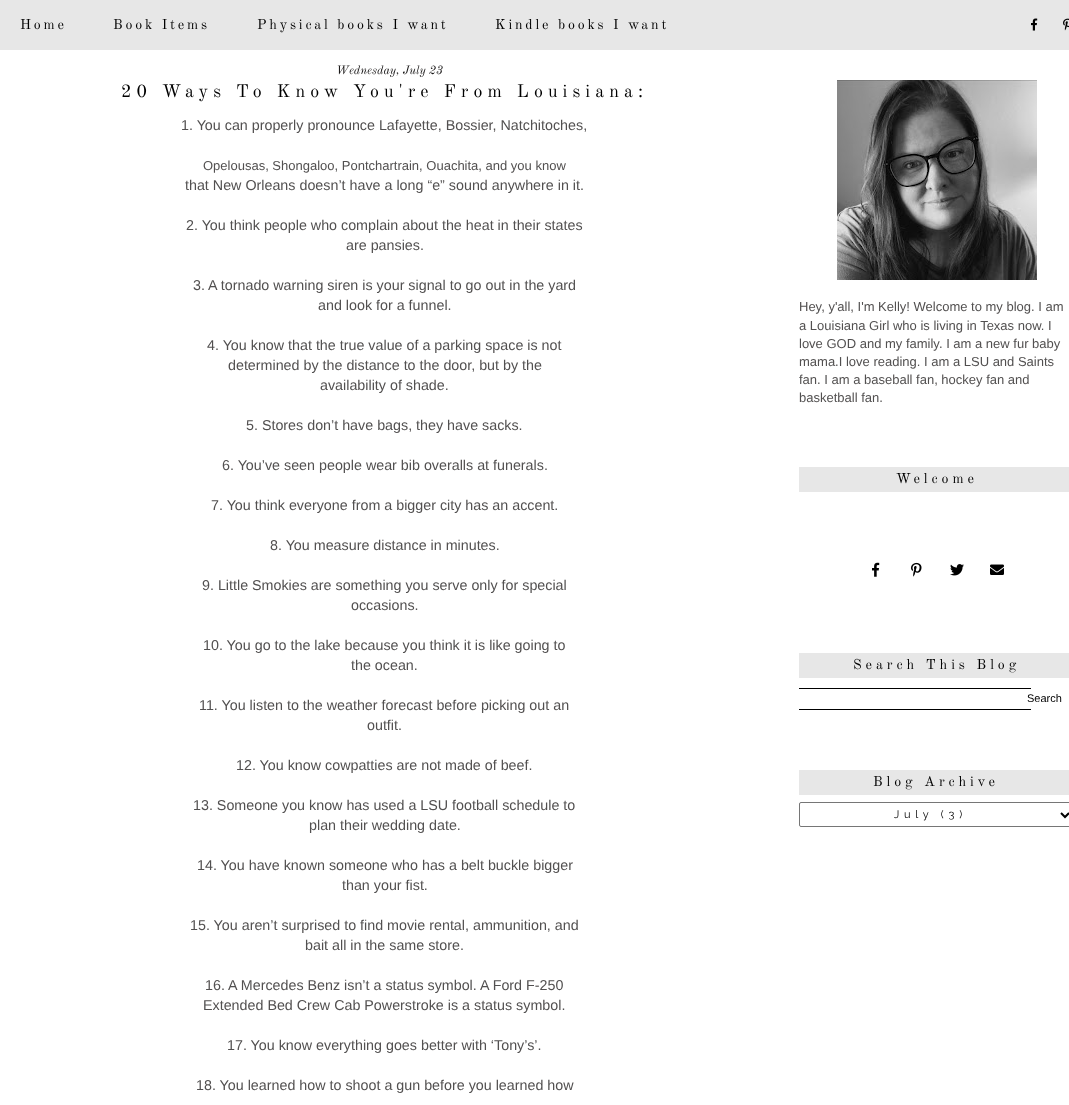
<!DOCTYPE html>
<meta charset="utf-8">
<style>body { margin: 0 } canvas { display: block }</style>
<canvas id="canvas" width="1069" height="1105"></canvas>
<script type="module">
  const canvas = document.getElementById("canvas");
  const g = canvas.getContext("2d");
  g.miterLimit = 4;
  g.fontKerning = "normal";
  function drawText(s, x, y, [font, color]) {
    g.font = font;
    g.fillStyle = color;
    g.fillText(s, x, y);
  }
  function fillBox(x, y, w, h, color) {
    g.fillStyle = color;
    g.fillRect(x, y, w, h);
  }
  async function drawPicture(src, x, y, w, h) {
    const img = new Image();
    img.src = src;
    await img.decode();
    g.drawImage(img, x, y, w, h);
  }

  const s1 = ["14px Old Standard TT", "#000000"];
  const s2 = ["italic 12px Old Standard TT", "#171515"];
  const s3 = ["18px Old Standard TT", "#000000"];
  const s4 = ["14.3px Liberation Sans", "#525050"];
  const s5 = ["13px Liberation Sans", "#525050"];
  const s6 = ["11px Liberation Sans", "#000000"];
  const s7 = ["100 11px Raleway", "#000000"];

  fillBox(0, 0, 1069, 1105, "#FFFFFF");
  fillBox(0, 0, 1069, 50, "#E7E7E7");
  g.letterSpacing = "2.8px";
  drawText("Home", 20, 29, s1);
  drawText("Book Items", 113, 29, s1);
  drawText("Physical books I want", 257, 29, s1);
  drawText("Kindle books I want", 495, 29, s1);
  await drawPicture("pic1.png", 1031, 18, 7, 13);
  await drawPicture("pic2.png", 1063, 18, 6, 13);
  g.letterSpacing = "0px";
  drawText("Wednesday, July 23", 336, 74, s2);
  g.letterSpacing = "5.05px";
  drawText("20 Ways To Know You're From Louisiana:", 121, 97, s3);
  g.letterSpacing = "0px";
  drawText("1. You can properly pronounce Lafayette, Bossier, Natchitoches,", 181, 130, s4);
  drawText("Opelousas, Shongaloo, Pontchartrain, Ouachita, and you know", 203, 170, s5);
  drawText("that New Orleans doesn’t have a long “e” sound anywhere in it.", 185, 190, s4);
  drawText("2. You think people who complain about the heat in their states", 186, 230, s4);
  drawText("are pansies.", 346, 250, s4);
  drawText("3. A tornado warning siren is your signal to go out in the yard", 193, 290, s4);
  drawText("and look for a funnel.", 318, 310, s4);
  drawText("4. You know that the true value of a parking space is not", 207, 350, s4);
  drawText("determined by the distance to the door, but by the", 228, 370, s4);
  drawText("availability of shade.", 320, 390, s4);
  drawText("5. Stores don’t have bags, they have sacks.", 246, 430, s4);
  drawText("6. You’ve seen people wear bib overalls at funerals.", 222, 470, s4);
  drawText("7. You think everyone from a bigger city has an accent.", 211, 510, s4);
  drawText("8. You measure distance in minutes.", 270, 550, s4);
  drawText("9. Little Smokies are something you serve only for special", 202, 590, s4);
  drawText("occasions.", 351, 610, s4);
  drawText("10. You go to the lake because you think it is like going to", 203, 650, s4);
  drawText("the ocean.", 351, 670, s4);
  drawText("11. You listen to the weather forecast before picking out an", 199, 710, s4);
  drawText("outfit.", 367, 730, s4);
  drawText("12. You know cowpatties are not made of beef.", 236, 770, s4);
  drawText("13. Someone you know has used a LSU football schedule to", 193, 810, s4);
  drawText("plan their wedding date.", 309, 830, s4);
  drawText("14. You have known someone who has a belt buckle bigger", 197, 870, s4);
  drawText("than your fist.", 342, 890, s4);
  drawText("15. You aren’t surprised to find movie rental, ammunition, and", 190, 930, s4);
  drawText("bait all in the same store.", 305, 950, s4);
  drawText("16. A Mercedes Benz isn’t a status symbol. A Ford F-250", 205, 990, s4);
  drawText("Extended Bed Crew Cab Powerstroke is a status symbol.", 203, 1010, s4);
  drawText("17. You know everything goes better with ‘Tony’s’.", 227, 1050, s4);
  drawText("18. You learned how to shoot a gun before you learned how", 196, 1090, s4);
  await drawPicture("pic3.png", 837, 80, 200, 200);
  drawText("Hey, y'all, I'm Kelly! Welcome to my blog. I am", 799, 311, s5);
  drawText("a Louisiana Girl who is living in Texas now. I", 799, 330, s5);
  drawText("love GOD and my family. I am a new fur baby", 799, 348, s5);
  drawText("mama.I love reading. I am a LSU and Saints", 799, 366, s5);
  drawText("fan. I am a baseball fan, hockey fan and", 799, 384, s5);
  drawText("basketball fan.", 799, 402, s5);
  fillBox(799, 467, 270, 25, "#E7E7E7");
  g.letterSpacing = "3.9px";
  drawText("Welcome", 896, 483, s1);
  await drawPicture("pic4.png", 872, 562, 8, 15);
  await drawPicture("pic5.png", 911, 562, 11, 15);
  await drawPicture("pic6.png", 950, 564, 14, 12);
  await drawPicture("pic7.png", 990, 564, 14, 11);
  fillBox(799, 653, 270, 25, "#E7E7E7");
  drawText("Search This Blog", 853, 669, s1);
  fillBox(799, 688, 232, 1, "#000000");
  fillBox(799, 709, 232, 1, "#000000");
  g.letterSpacing = "0px";
  drawText("Search", 1027, 702, s6);
  fillBox(799, 770, 270, 25, "#E7E7E7");
  g.letterSpacing = "3.9px";
  drawText("Blog Archive", 873, 786, s1);
  g.beginPath();
  g.roundRect(799.5, 802.5, 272, 24, 1.5);
  g.strokeStyle = "#767676";
  g.stroke();
  g.beginPath();
  g.moveTo(1061, 813);
  g.lineTo(1065, 817);
  g.lineTo(1069, 813);
  g.strokeStyle = "#000000";
  g.lineWidth = 2;
  g.stroke();
  g.letterSpacing = "4.75px";
  drawText("July (3)", 894, 818, s7);
</script>
